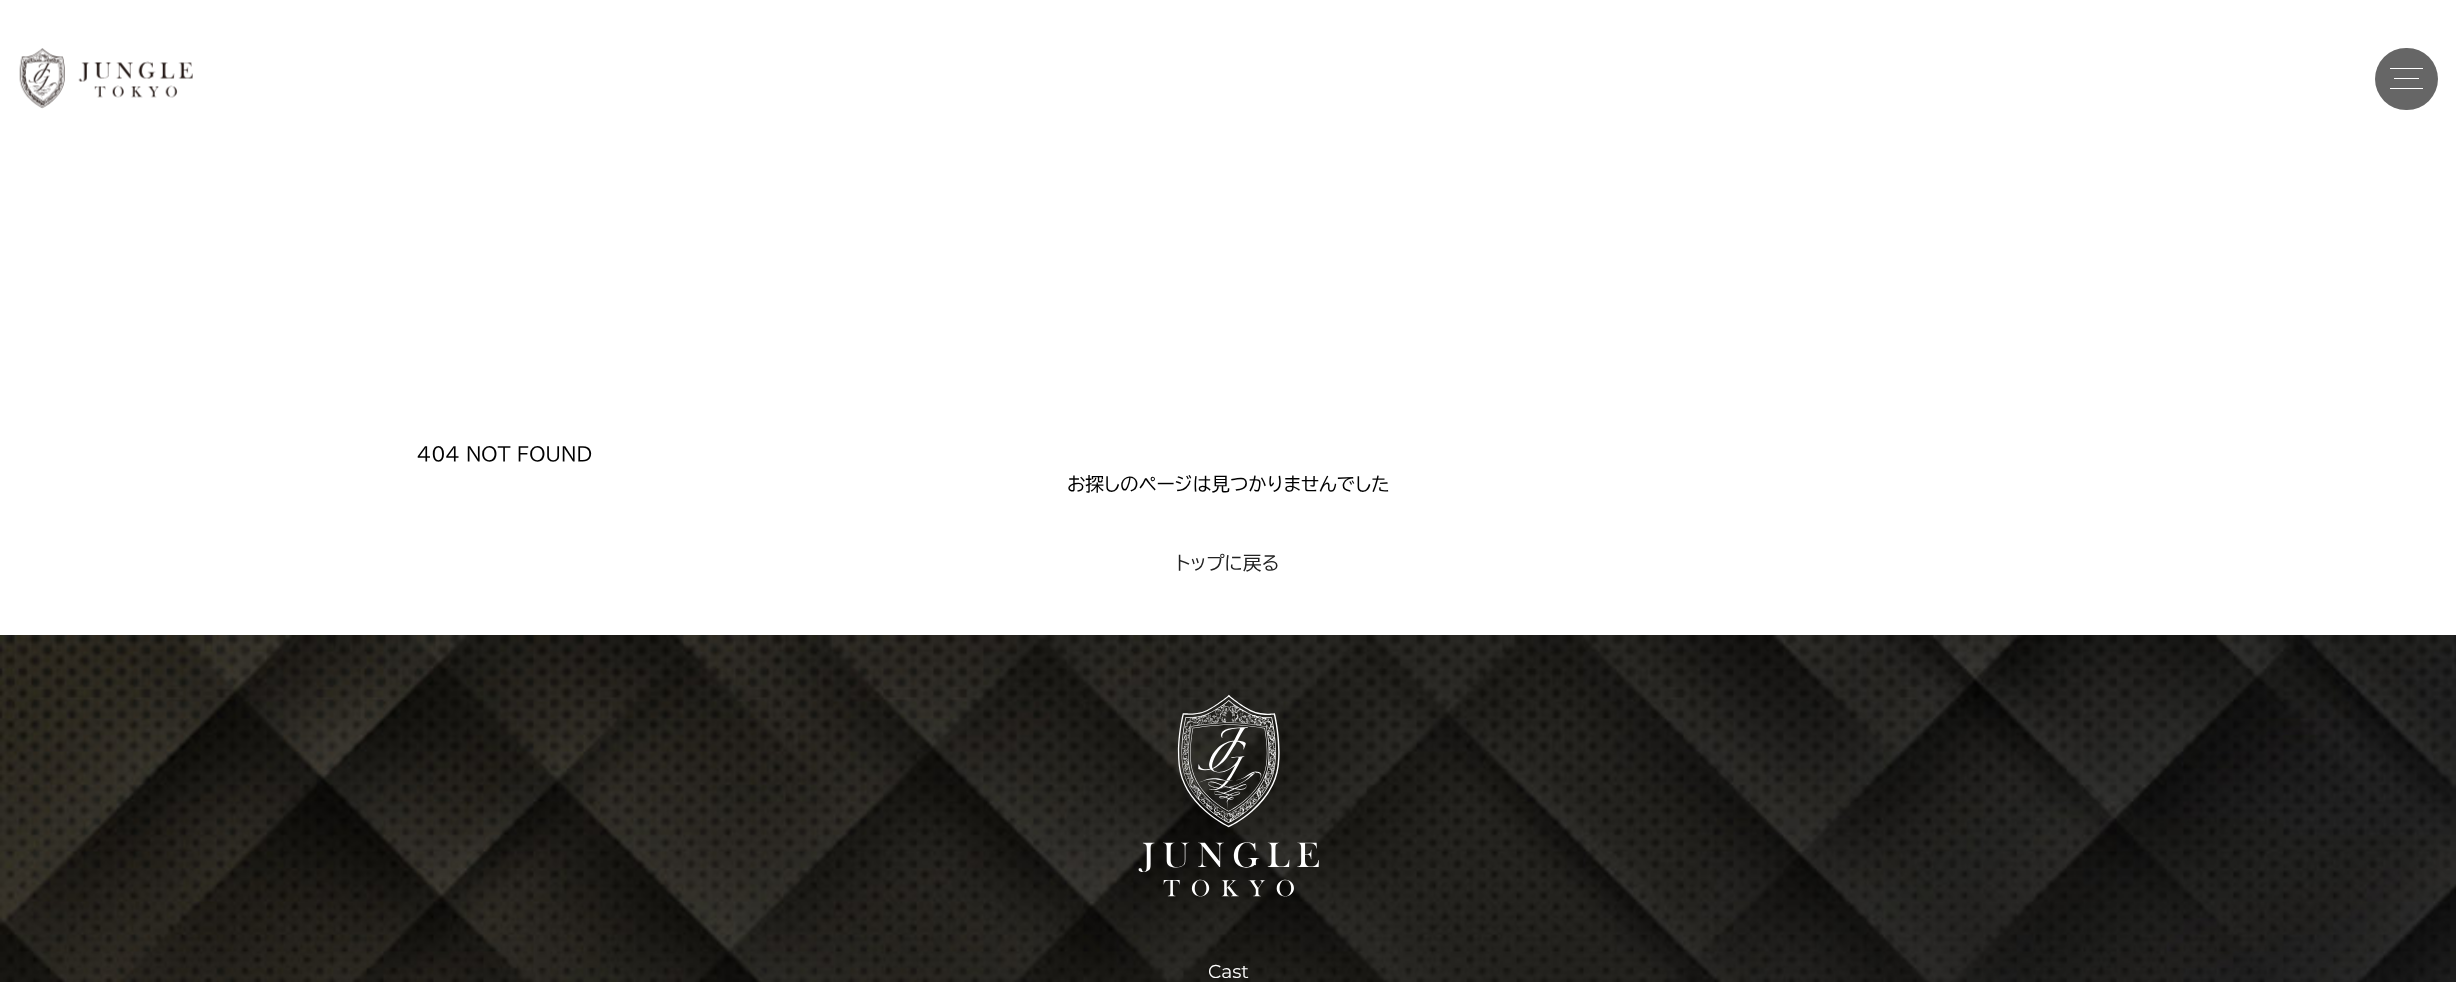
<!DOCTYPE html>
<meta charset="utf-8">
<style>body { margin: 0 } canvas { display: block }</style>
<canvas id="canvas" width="2456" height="982"></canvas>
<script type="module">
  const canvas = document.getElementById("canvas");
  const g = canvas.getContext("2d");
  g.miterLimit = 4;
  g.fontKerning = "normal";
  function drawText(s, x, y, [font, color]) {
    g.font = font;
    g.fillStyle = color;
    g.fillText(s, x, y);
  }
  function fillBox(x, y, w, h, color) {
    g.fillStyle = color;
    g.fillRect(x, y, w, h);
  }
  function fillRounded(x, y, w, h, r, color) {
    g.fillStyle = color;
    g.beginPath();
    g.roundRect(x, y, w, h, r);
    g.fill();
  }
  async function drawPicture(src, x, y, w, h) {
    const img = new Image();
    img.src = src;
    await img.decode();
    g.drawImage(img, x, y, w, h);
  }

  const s1 = ["18.75px BIZ UDPGothic", "#000000"];
  const s2 = ["18.75px BIZ UDPGothic", "#222222"];
  const s3 = ["18.75px Montserrat", "#FFFFFF"];

  fillBox(0, 0, 2456, 982, "#FFFFFF");
  await drawPicture("pic1.png", 19, 48, 174, 61);
  fillRounded(2375, 48, 63, 62, 31, "#666666");
  fillBox(2390, 68, 33, 1, "#FFFFFF");
  fillBox(2394, 78, 25, 1, "#FFFFFF");
  fillBox(2390, 88, 33, 1, "#FFFFFF");
  drawText("404 NOT FOUND", 417, 461, s1);
  drawText("お探しのページは見つかりませんでした", 1067, 491, s1);
  drawText("トップに戻る", 1176, 570, s2);
  await drawPicture("pic2.png", 0, 635, 2456, 347);
  await drawPicture("pic3.png", 1138, 694, 181, 203);
  drawText("Cast", 1208, 978, s3);
</script>
